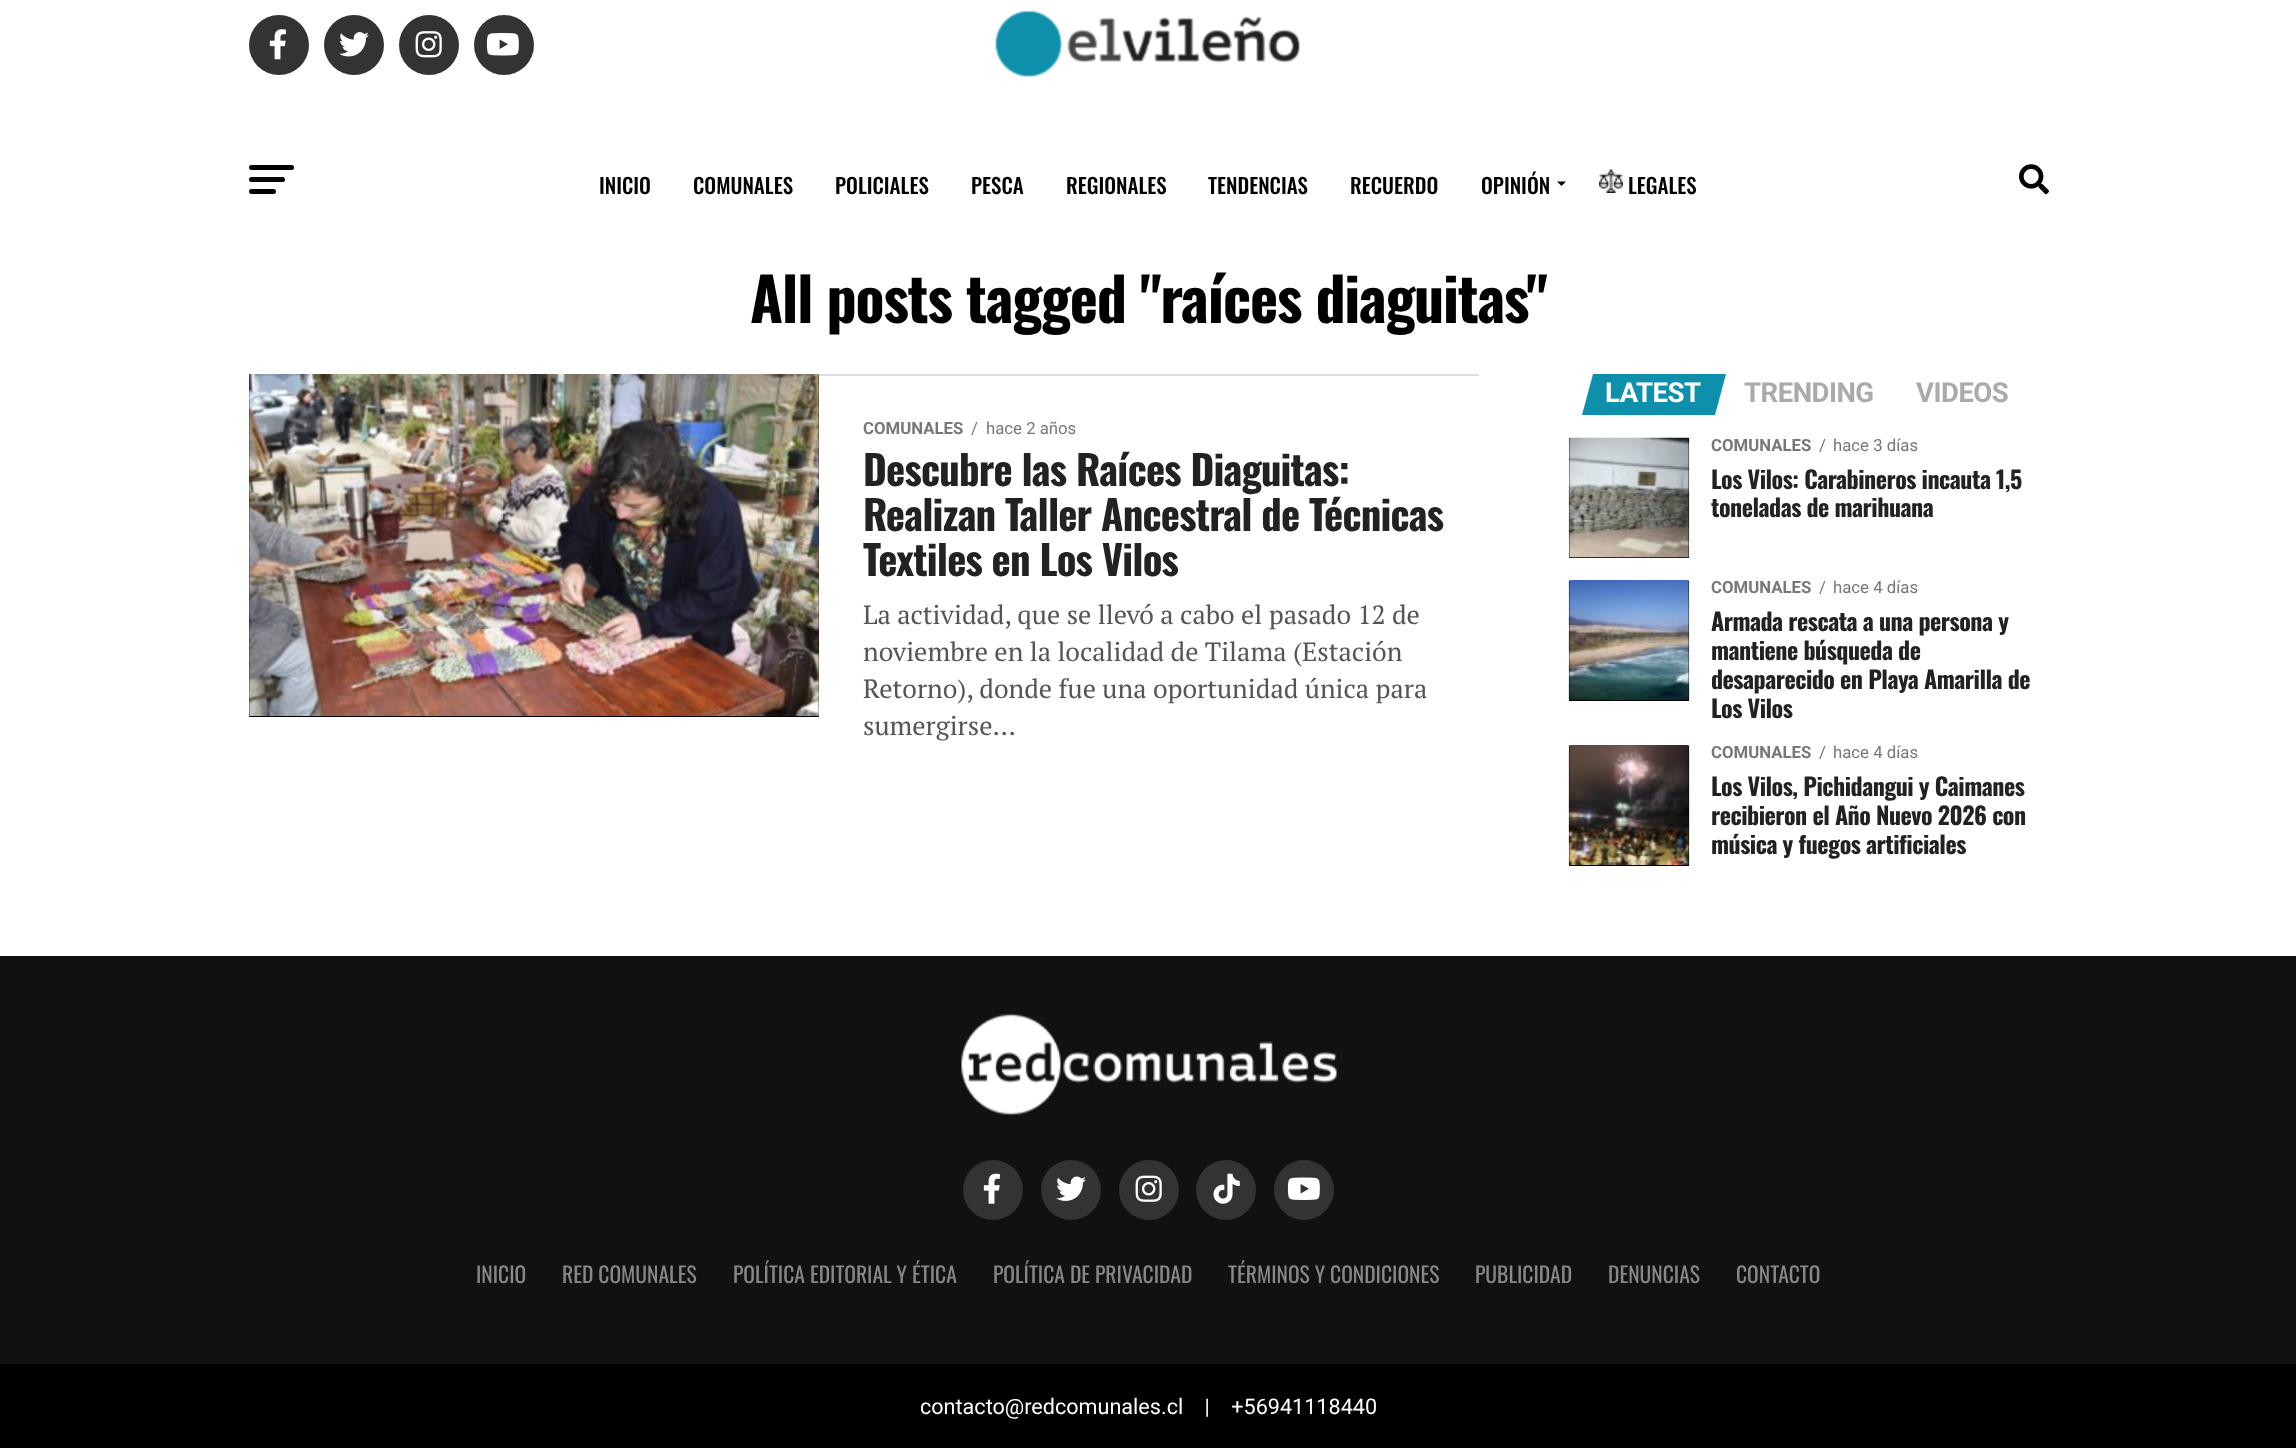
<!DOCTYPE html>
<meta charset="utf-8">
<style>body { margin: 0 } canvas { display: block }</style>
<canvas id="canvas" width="2296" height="1448"></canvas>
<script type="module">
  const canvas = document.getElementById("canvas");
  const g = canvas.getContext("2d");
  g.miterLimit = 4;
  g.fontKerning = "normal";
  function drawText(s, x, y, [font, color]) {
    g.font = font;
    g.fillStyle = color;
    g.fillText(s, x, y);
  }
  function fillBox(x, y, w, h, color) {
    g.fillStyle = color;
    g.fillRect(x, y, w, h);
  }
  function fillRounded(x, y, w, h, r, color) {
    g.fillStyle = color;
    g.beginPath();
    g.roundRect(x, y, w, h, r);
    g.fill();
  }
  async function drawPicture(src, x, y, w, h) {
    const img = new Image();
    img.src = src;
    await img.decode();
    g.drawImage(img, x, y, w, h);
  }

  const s1 = ["500 21px Oswald", "#000000"];
  const s2 = ["bold 60px Oswald", "#000000"];
  const s3 = ["bold 16.75px Roboto", "#777777"];
  const s4 = ["16.75px Roboto", "#777777"];
  const s5 = ["bold 40.75px Oswald", "#222222"];
  const s6 = ["26.4px PT Serif", "#555555"];
  const s7 = ["bold 27.5px Roboto", "#FFFFFF"];
  const s8 = ["bold 27.5px Roboto", "#AAAAAA"];
  const s9 = ["bold 24px Oswald", "#222222"];
  const s10 = ["21.6px Oswald", "#888888"];
  const s11 = ["21.6px Roboto", "#FFFFFF"];

  fillBox(0, 0, 2296, 1448, "#FFFFFF");
  g.fillStyle = "#333333";
  g.beginPath();
  g.arc(279, 45, 30, 0, Math.PI * 2);
  g.fill();
  await drawPicture("pic1.png", 269, 29, 17, 31);
  g.beginPath();
  g.arc(354, 45, 30, 0, Math.PI * 2);
  g.fill();
  await drawPicture("pic2.png", 339, 32, 30, 25);
  g.beginPath();
  g.arc(429, 45, 30, 0, Math.PI * 2);
  g.fill();
  await drawPicture("pic3.png", 415, 31, 27, 27);
  g.beginPath();
  g.arc(504, 45, 30, 0, Math.PI * 2);
  g.fill();
  await drawPicture("pic4.png", 486, 33, 33, 23);
  await drawPicture("pic5.png", 995, 10, 305, 67);
  fillRounded(249, 165, 45, 5, 2.5, "#000000");
  fillRounded(249, 177, 36, 5, 2.5, "#000000");
  fillRounded(249, 189, 27, 5, 2.5, "#000000");
  drawText("INICIO", 599, 194, s1);
  drawText("COMUNALES", 693, 194, s1);
  drawText("POLICIALES", 835, 194, s1);
  drawText("PESCA", 971, 194, s1);
  drawText("REGIONALES", 1066, 194, s1);
  drawText("TENDENCIAS", 1208, 194, s1);
  drawText("RECUERDO", 1350, 194, s1);
  drawText("OPINIÓN", 1481, 194, s1);
  g.beginPath();
  g.moveTo(1557, 181.5);
  g.lineTo(1566, 181.5);
  g.lineTo(1561.5, 186);
  g.closePath();
  g.fill();
  await drawPicture("pic6.png", 1599, 169, 24, 24);
  drawText("LEGALES", 1628, 194, s1);
  await drawPicture("pic7.png", 2019, 164, 30, 31);
  g.letterSpacing = "-1.2px";
  drawText("All posts tagged \"raíces diaguitas\"", 750, 323, s2);
  fillBox(249, 374, 1230, 2, "#DDDDDD");
  fillBox(249, 375, 570, 342, "#000000");
  await drawPicture("pic8.png", 249, 374, 570, 342);
  g.letterSpacing = "0px";
  drawText("COMUNALES", 863, 434, s3);
  drawText("/", 971, 434, s4);
  drawText("hace 2 años", 986, 434, s4);
  g.letterSpacing = "-0.8px";
  drawText("Descubre las Raíces Diaguitas:", 863, 486, s5);
  drawText("Realizan Taller Ancestral de Técnicas", 863, 531, s5);
  drawText("Textiles en Los Vilos", 863, 576, s5);
  g.letterSpacing = "0px";
  drawText("La actividad, que se llevó a cabo el pasado 12 de", 863, 624, s6);
  drawText("noviembre en la localidad de Tilama (Estación", 863, 661, s6);
  drawText("Retorno), donde fue una oportunidad única para", 863, 698, s6);
  drawText("sumergirse...", 863, 735, s6);
  g.fillStyle = "#0E90AD";
  g.beginPath();
  g.moveTo(1593, 374);
  g.lineTo(1726, 374);
  g.lineTo(1715, 415);
  g.lineTo(1582, 415);
  g.closePath();
  g.fill();
  g.letterSpacing = "-0.5px";
  drawText("LATEST", 1605, 402, s7);
  drawText("TRENDING", 1744, 402, s8);
  drawText("VIDEOS", 1916, 402, s8);
  fillBox(1569, 438, 120, 120, "#000000");
  await drawPicture("pic9.png", 1568, 437, 122, 121);
  g.letterSpacing = "0px";
  drawText("COMUNALES", 1711, 451, s3);
  drawText("/", 1819, 451, s4);
  drawText("hace 3 días", 1833, 451, s4);
  g.letterSpacing = "-0.5px";
  drawText("Los Vilos: Carabineros incauta 1,5", 1711, 489, s9);
  drawText("toneladas de marihuana", 1711, 517, s9);
  fillBox(1569, 581, 120, 120, "#000000");
  await drawPicture("pic10.png", 1568, 580, 122, 120);
  g.letterSpacing = "0px";
  drawText("COMUNALES", 1711, 593, s3);
  drawText("/", 1819, 593, s4);
  drawText("hace 4 días", 1833, 593, s4);
  g.letterSpacing = "-0.5px";
  drawText("Armada rescata a una persona y", 1711, 631, s9);
  drawText("mantiene búsqueda de", 1711, 660, s9);
  drawText("desaparecido en Playa Amarilla de", 1711, 689, s9);
  drawText("Los Vilos", 1711, 718, s9);
  fillBox(1569, 746, 120, 120, "#000000");
  await drawPicture("pic11.png", 1568, 745, 122, 120);
  g.letterSpacing = "0px";
  drawText("COMUNALES", 1711, 758, s3);
  drawText("/", 1819, 758, s4);
  drawText("hace 4 días", 1833, 758, s4);
  g.letterSpacing = "-0.5px";
  drawText("Los Vilos, Pichidangui y Caimanes", 1711, 796, s9);
  drawText("recibieron el Año Nuevo 2026 con", 1711, 825, s9);
  drawText("música y fuegos artificiales", 1711, 854, s9);
  fillBox(0, 956, 2296, 408, "#111111");
  await drawPicture("pic12.png", 961, 1014, 376, 101);
  g.fillStyle = "#333333";
  g.beginPath();
  g.arc(993, 1190, 30, 0, Math.PI * 2);
  g.fill();
  await drawPicture("pic13.png", 983, 1173, 17, 31);
  g.beginPath();
  g.arc(1071, 1190, 30, 0, Math.PI * 2);
  g.fill();
  await drawPicture("pic14.png", 1056, 1176, 30, 25);
  g.beginPath();
  g.arc(1149, 1190, 30, 0, Math.PI * 2);
  g.fill();
  await drawPicture("pic15.png", 1135, 1175, 27, 27);
  g.beginPath();
  g.arc(1226, 1190, 30, 0, Math.PI * 2);
  g.fill();
  await drawPicture("pic16.png", 1213, 1173, 27, 31);
  g.beginPath();
  g.arc(1304, 1190, 30, 0, Math.PI * 2);
  g.fill();
  await drawPicture("pic17.png", 1287, 1177, 33, 23);
  g.letterSpacing = "0px";
  drawText("INICIO", 476, 1283, s10);
  drawText("RED COMUNALES", 562, 1283, s10);
  drawText("POLÍTICA EDITORIAL Y ÉTICA", 733, 1283, s10);
  drawText("POLÍTICA DE PRIVACIDAD", 993, 1283, s10);
  drawText("TÉRMINOS Y CONDICIONES", 1228, 1283, s10);
  drawText("PUBLICIDAD", 1475, 1283, s10);
  drawText("DENUNCIAS", 1608, 1283, s10);
  drawText("CONTACTO", 1736, 1283, s10);
  fillBox(0, 1364, 2296, 84, "#000000");
  drawText("contacto@redcomunales.cl    |    +56941118440", 920, 1414, s11);
</script>
